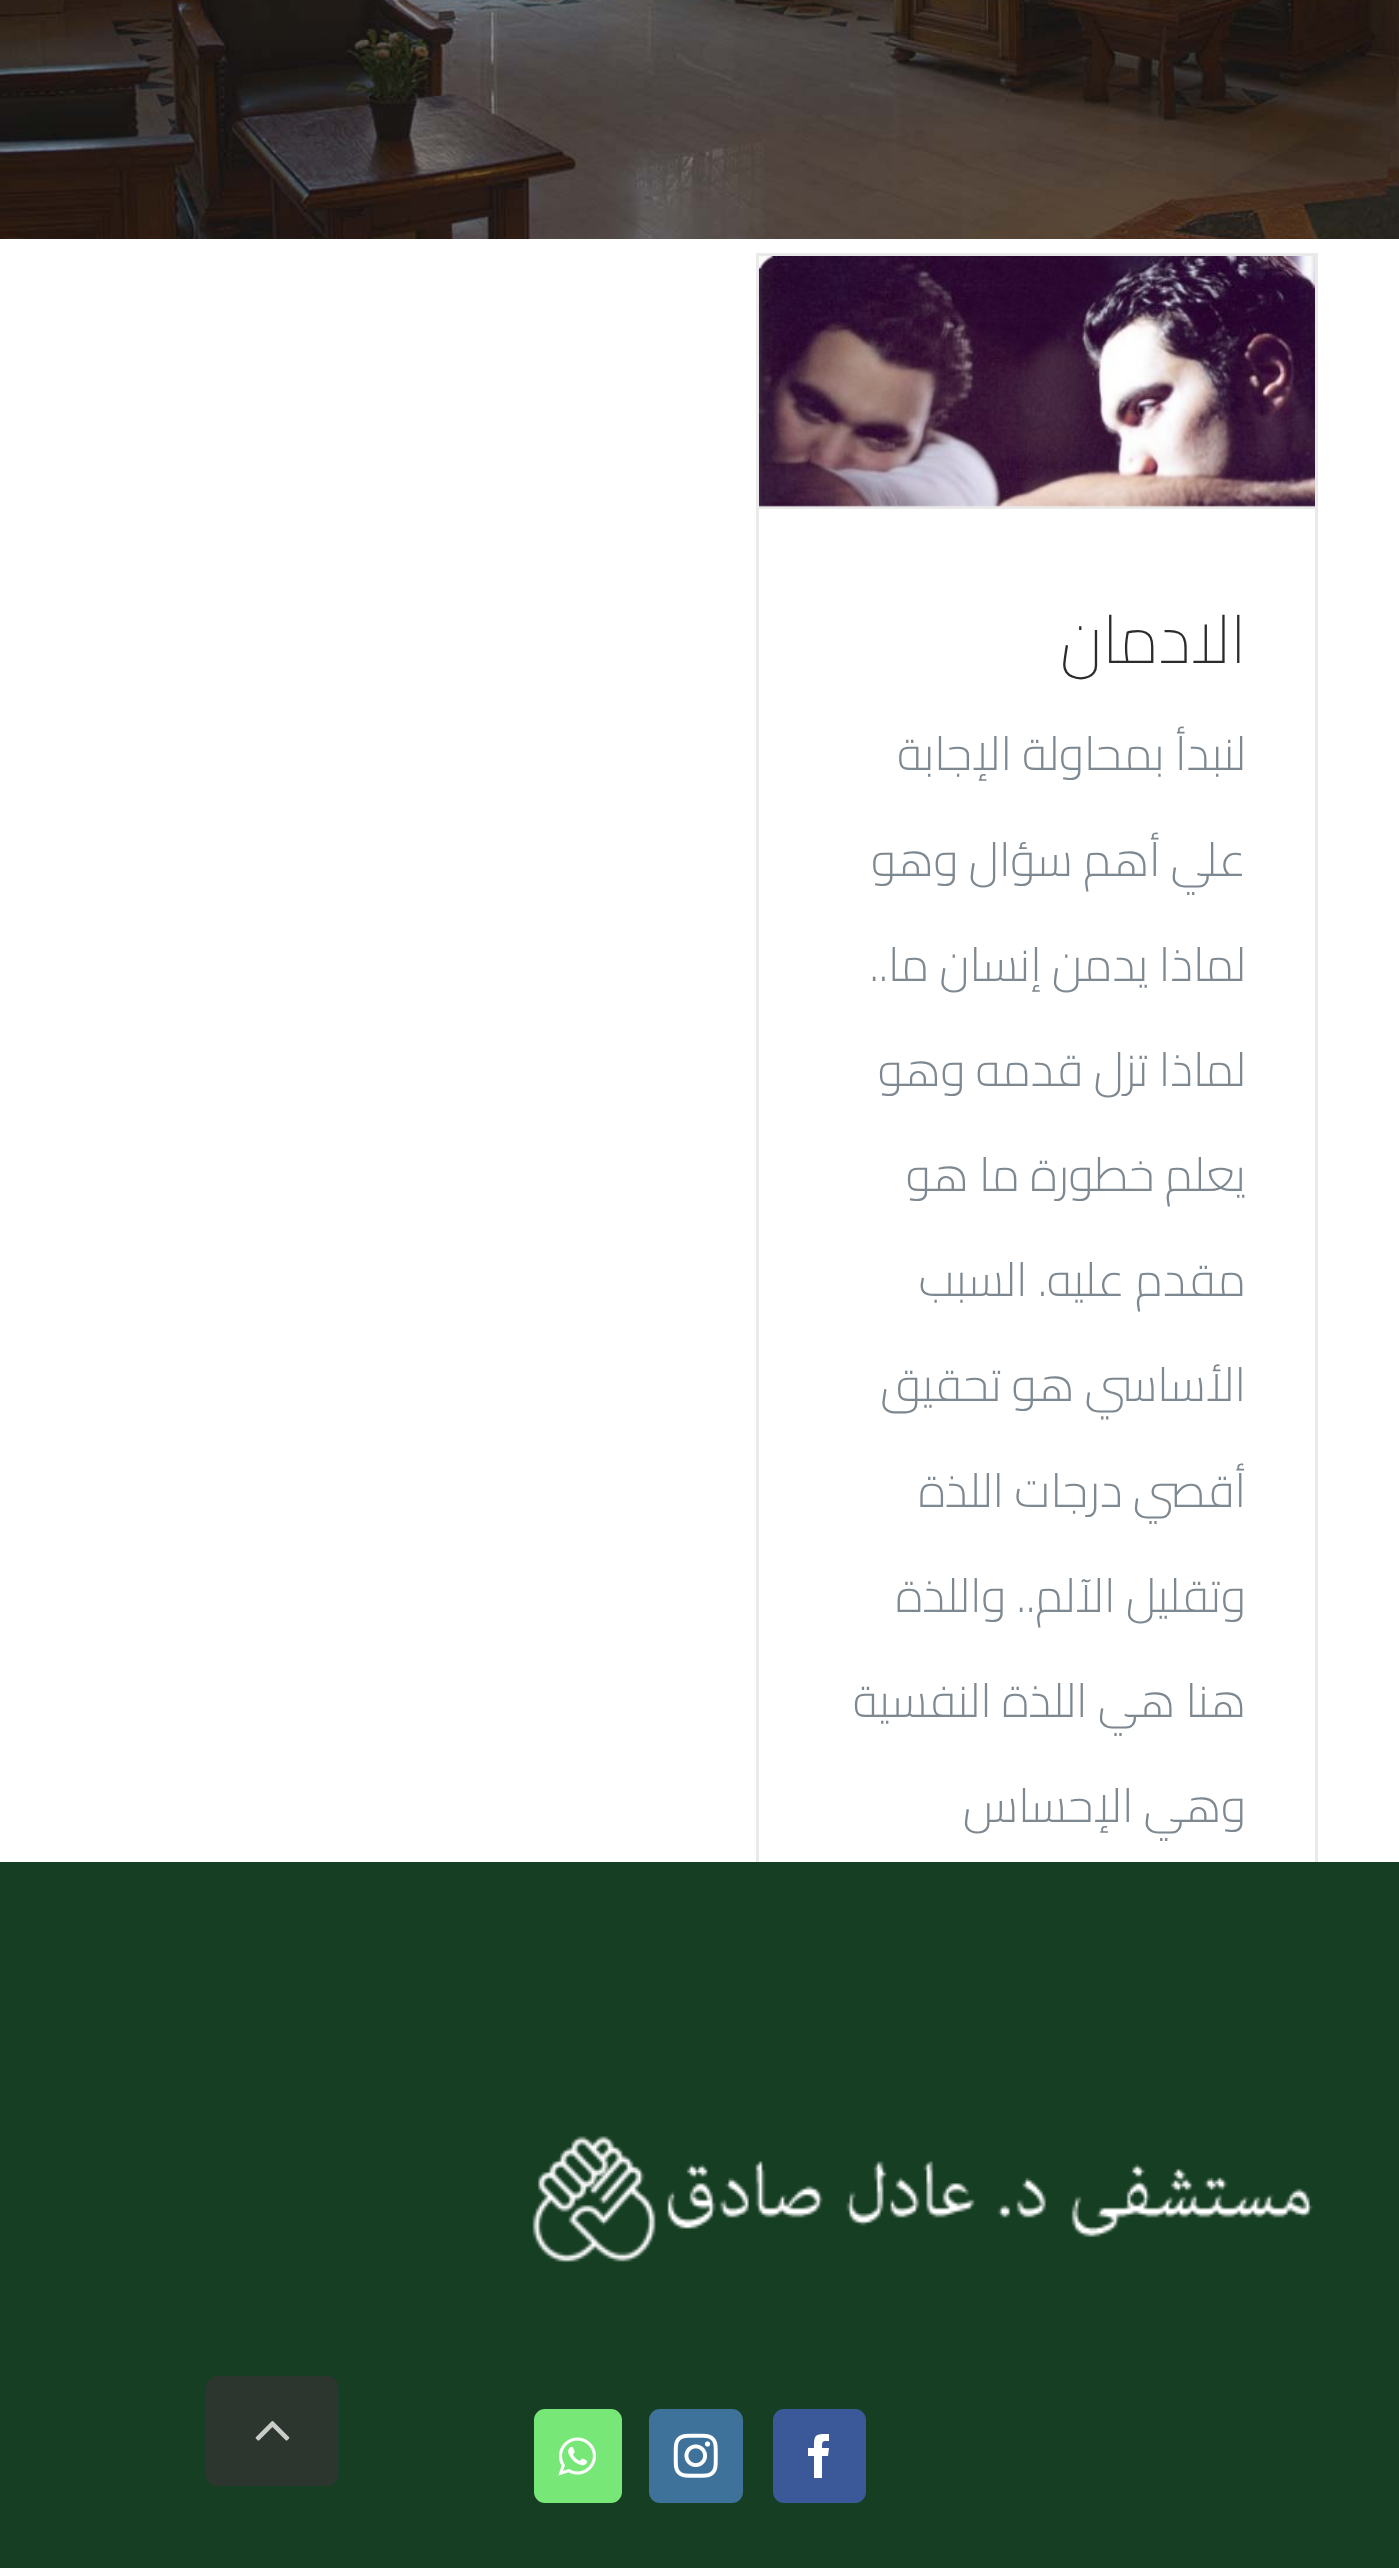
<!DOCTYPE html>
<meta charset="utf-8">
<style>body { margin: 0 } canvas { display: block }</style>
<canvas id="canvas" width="1399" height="2568"></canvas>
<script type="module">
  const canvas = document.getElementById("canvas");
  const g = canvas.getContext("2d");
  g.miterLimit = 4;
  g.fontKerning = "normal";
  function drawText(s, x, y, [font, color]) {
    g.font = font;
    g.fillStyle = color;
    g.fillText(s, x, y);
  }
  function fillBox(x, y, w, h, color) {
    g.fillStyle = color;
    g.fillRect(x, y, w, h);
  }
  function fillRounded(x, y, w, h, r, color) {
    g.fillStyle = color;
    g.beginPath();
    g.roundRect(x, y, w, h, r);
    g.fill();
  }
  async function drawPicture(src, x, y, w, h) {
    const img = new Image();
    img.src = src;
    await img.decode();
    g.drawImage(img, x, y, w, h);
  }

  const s1 = ["200 66px Cairo", "#2B2B2B"];
  const s2 = ["300 46.75px Cairo", "#7E8890"];

  fillBox(0, 0, 1399, 2568, "#FFFFFF");
  await drawPicture("pic1.png", 0, 0, 1399, 239);
  fillBox(756, 253, 561, 3, "#EBEAEA");
  fillBox(1315, 253, 3, 1609, "#EBEAEA");
  fillBox(756, 253, 3, 1609, "#EBEAEA");
  fillBox(759, 506, 556, 3, "#EBEAEA");
  await drawPicture("pic2.png", 759, 256, 556, 251);
  g.direction = "rtl";
  drawText("الادمان", 1246, 663, s1);
  drawText("لنبدأ بمحاولة الإجابة", 1246, 770, s2);
  drawText("علي أهم سؤال وهو", 1246, 876, s2);
  drawText("لماذا يدمن إنسان ما..", 1246, 981, s2);
  drawText("لماذا تزل قدمه وهو", 1246, 1086, s2);
  drawText("يعلم خطورة ما هو", 1246, 1191, s2);
  drawText("مقدم عليه. السبب", 1246, 1296, s2);
  drawText("الأساسي هو تحقيق", 1246, 1401, s2);
  drawText("أقصي درجات اللذة", 1246, 1507, s2);
  drawText("وتقليل الآلم.. واللذة", 1246, 1612, s2);
  drawText("هنا هي اللذة النفسية", 1246, 1717, s2);
  drawText("وهي الإحساس", 1246, 1822, s2);
  fillBox(0, 1862, 1399, 706, "#163E23");
  await drawPicture("pic3.png", 532, 2136, 781, 127);
  g.fillStyle = "#3B5998";
  g.beginPath();
  g.roundRect(774.5, 2410.5, 90, 91, 9.5);
  g.fill();
  g.strokeStyle = "#3B5998";
  g.lineWidth = 3;
  g.stroke();
  g.fillStyle = "#FFFFFF";
  g.beginPath();
  g.moveTo(822, 2478);
  g.lineTo(814, 2478);
  g.lineTo(814, 2456);
  g.lineTo(808, 2456);
  g.lineTo(808, 2448);
  g.lineTo(814, 2448);
  g.bezierCurveTo(814, 2434, 815, 2434, 829, 2434);
  g.lineTo(829, 2441);
  g.bezierCurveTo(822, 2441, 822, 2441, 822, 2448);
  g.lineTo(829, 2448);
  g.lineTo(828, 2456);
  g.lineTo(822, 2456);
  g.closePath();
  g.fill();
  g.fillStyle = "#3F729B";
  g.beginPath();
  g.roundRect(650.5, 2410.5, 91, 91, 9.5);
  g.fill();
  g.strokeStyle = "#3F729B";
  g.stroke();
  await drawPicture("pic4.png", 673, 2433, 45, 45);
  g.fillStyle = "#77E878";
  g.beginPath();
  g.roundRect(535.5, 2410.5, 85, 91, 9.5);
  g.fill();
  g.strokeStyle = "#77E878";
  g.stroke();
  await drawPicture("pic5.png", 558, 2437, 38, 39);
  fillRounded(206, 2376, 132, 110, 11, "#2C362F");
  await drawPicture("pic6.png", 255, 2421, 35, 20);
</script>
